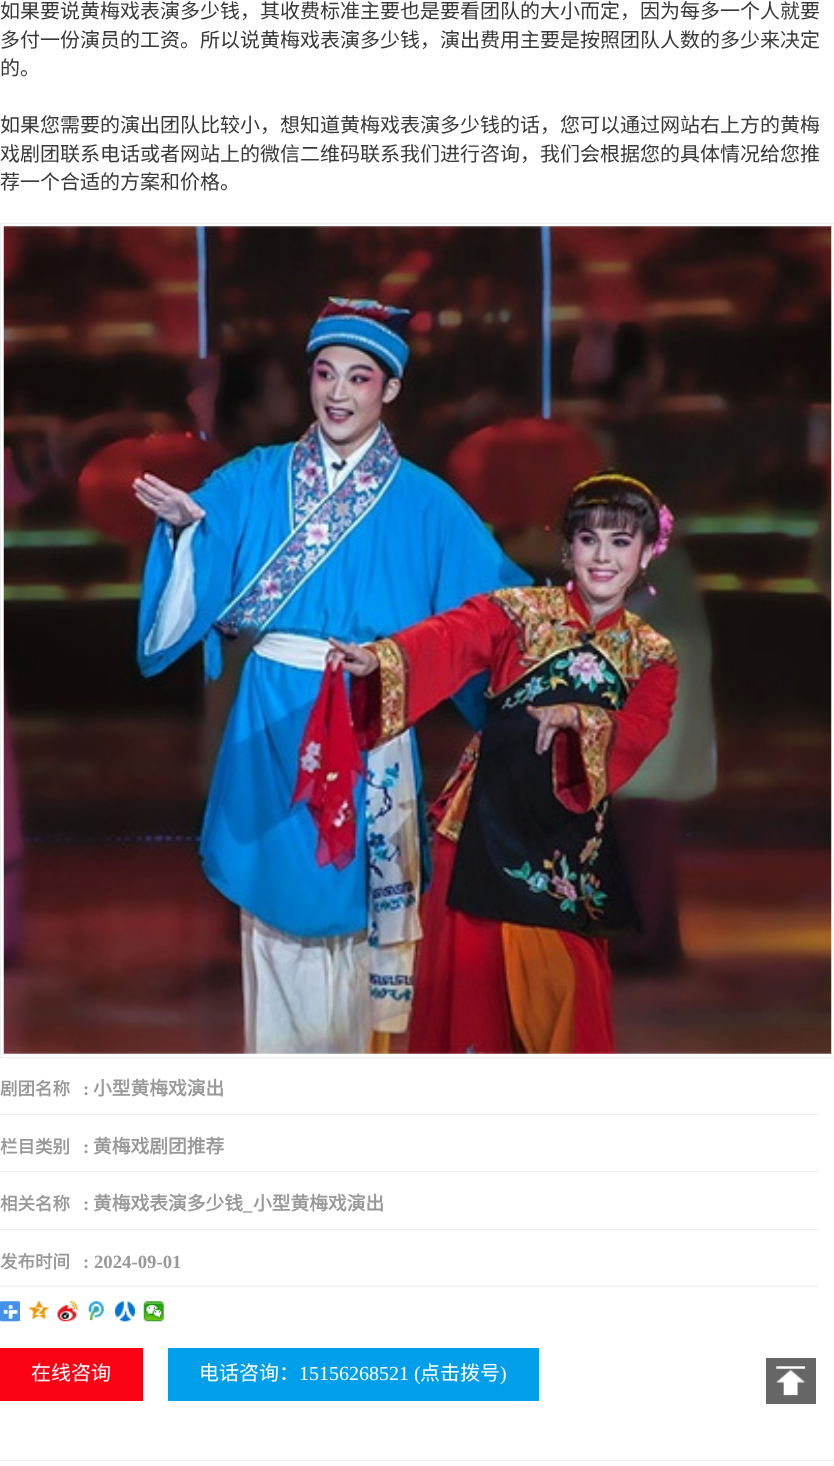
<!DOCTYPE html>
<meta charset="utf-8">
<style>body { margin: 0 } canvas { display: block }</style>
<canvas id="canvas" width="834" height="1466"></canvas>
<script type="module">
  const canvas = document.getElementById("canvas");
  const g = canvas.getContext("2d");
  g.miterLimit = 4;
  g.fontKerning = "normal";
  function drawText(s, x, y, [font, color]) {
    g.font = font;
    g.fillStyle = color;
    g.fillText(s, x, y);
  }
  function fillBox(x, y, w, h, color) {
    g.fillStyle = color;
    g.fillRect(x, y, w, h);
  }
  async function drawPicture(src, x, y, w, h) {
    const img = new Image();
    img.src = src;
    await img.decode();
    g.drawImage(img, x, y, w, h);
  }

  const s1 = ["20px Noto Sans CJK SC", "#393939"];
  const s2 = ["bold 17.5px Noto Sans CJK SC", "#999999"];
  const s3 = ["bold 18.75px Liberation Serif", "#999999"];
  const s4 = ["bold 18.75px Noto Sans CJK SC", "#999999"];
  const s5 = ["20px Noto Sans CJK SC", "#FFFFFF"];
  const s6 = ["20px Liberation Serif", "#FFFFFF"];

  fillBox(0, 0, 834, 1466, "#FFFFFF");
  drawText("如果要说", 0, 18, s1);
  drawText("黄梅戏表演多少钱", 80, 18, s1);
  drawText("，其收费标准主要也是要看团队的大小而定，因为每多一个人就要", 240, 18, s1);
  drawText("多付一份演员的工资。所以说黄梅戏表演多少钱，演出费用主要是按照团队人数的多少来决定", 0, 47, s1);
  drawText("的。", 0, 75, s1);
  drawText("如果您需要的演出团队比较小，想知道黄梅戏表演多少钱的话，您可以通过网站右上方的黄梅", 0, 132, s1);
  drawText("戏剧团联系电话或者网站上的微信二维码联系我们进行咨询，我们会根据您的具体情况给您推", 0, 161, s1);
  drawText("荐一个合适的方案和价格。", 0, 189, s1);
  g.strokeStyle = "#EEEEEE";
  g.strokeRect(0.5, 223.5, 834, 834);
  await drawPicture("pic1.png", 3, 226, 829, 828);
  fillBox(0, 1114, 819, 1, "#EEEEEE");
  drawText("剧团名称", 0, 1095, s2);
  drawText(":", 83, 1095, s3);
  drawText("小型黄梅戏演出", 93, 1095, s4);
  fillBox(0, 1171, 819, 1, "#EEEEEE");
  drawText("栏目类别", 0, 1153, s2);
  drawText(":", 83, 1153, s3);
  drawText("黄梅戏剧团推荐", 93, 1153, s4);
  fillBox(0, 1229, 819, 1, "#EEEEEE");
  drawText("相关名称", 0, 1210, s2);
  drawText(":", 83, 1210, s3);
  drawText("黄梅戏表演多少钱", 93, 1210, s4);
  drawText("小型黄梅戏演出", 253, 1210, s4);
  drawText("_", 243, 1210, s3);
  fillBox(0, 1286, 819, 1, "#EEEEEE");
  drawText("发布时间", 0, 1268, s2);
  drawText(": 2024-09-01", 83, 1268, s3);
  await drawPicture("pic2.png", 0, 1301, 20, 21);
  await drawPicture("pic3.png", 28, 1301, 21, 18);
  await drawPicture("pic4.png", 57, 1301, 21, 21);
  await drawPicture("pic5.png", 88, 1301, 16, 20);
  await drawPicture("pic6.png", 115, 1301, 20, 21);
  await drawPicture("pic7.png", 143, 1301, 21, 21);
  fillBox(0, 1348, 143, 53, "#FC0215");
  drawText("在线咨询", 31, 1380, s5);
  fillBox(168, 1348, 371, 53, "#019FE9");
  drawText("电话咨询：", 199, 1380, s5);
  drawText("15156268521 (", 299, 1380, s6);
  drawText("点击拨号", 420, 1380, s5);
  drawText(")", 500, 1380, s6);
  fillBox(0, 1460, 834, 1, "#EEEEEE");
  fillBox(766, 1358, 50, 46, "#666666");
  await drawPicture("pic8.png", 776, 1366, 30, 30);
</script>
